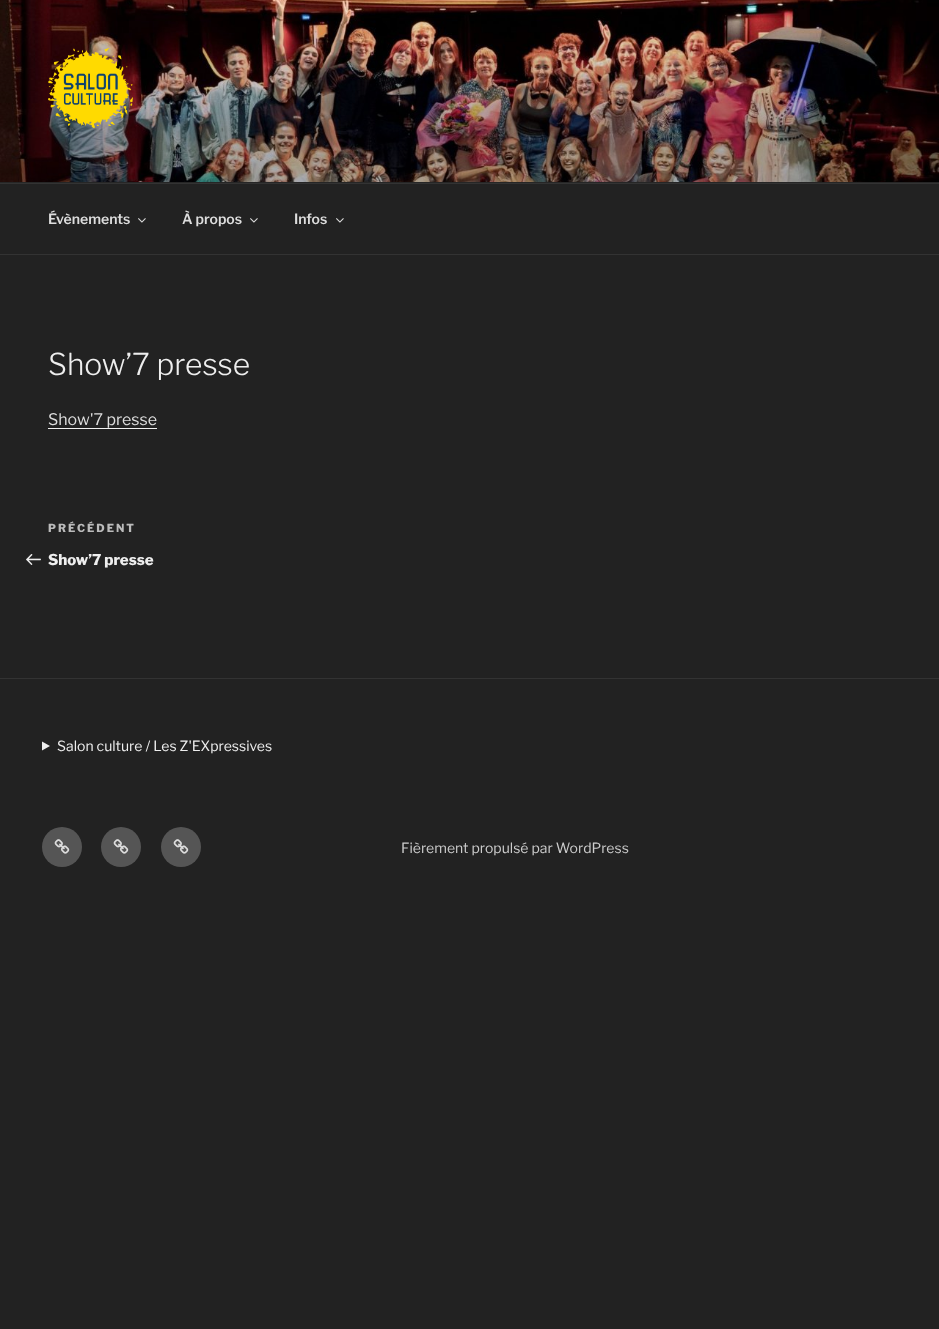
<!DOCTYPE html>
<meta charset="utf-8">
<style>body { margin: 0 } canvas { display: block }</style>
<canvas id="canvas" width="939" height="1329"></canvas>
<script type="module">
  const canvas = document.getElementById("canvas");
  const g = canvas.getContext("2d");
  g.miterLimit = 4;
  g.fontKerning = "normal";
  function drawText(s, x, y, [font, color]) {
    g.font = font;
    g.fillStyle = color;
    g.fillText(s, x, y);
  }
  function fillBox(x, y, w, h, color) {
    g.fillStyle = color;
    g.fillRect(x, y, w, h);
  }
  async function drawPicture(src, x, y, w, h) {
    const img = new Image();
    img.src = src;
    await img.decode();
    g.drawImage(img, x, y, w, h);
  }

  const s1 = ["100 14px 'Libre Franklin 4'", "#DDDDDD"];
  const s2 = ["100 30px 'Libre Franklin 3'", "#EEEEEE"];
  const s3 = ["100 16px 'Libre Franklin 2'", "#DDDDDD"];
  const s4 = ["100 11px Libre Franklin", "#BBBBBB"];
  const s5 = ["100 15px Libre Franklin", "#EEEEEE"];
  const s6 = ["100 14px 'Libre Franklin 2'", "#EEEEEE"];
  const s7 = ["100 14px 'Libre Franklin 2'", "#CCCCCC"];

  fillBox(0, 0, 939, 1329, "#222222");
  fillBox(0, 182, 939, 1, "#262626");
  await drawPicture("pic1.png", 0, 0, 939, 182);
  await drawPicture("pic2.png", 48, 48, 85, 80);
  fillBox(0, 183, 939, 1, "#333333");
  fillBox(0, 254, 939, 1, "#333333");
  drawText("Évènements", 48, 224, s1);
  await drawPicture("pic3.png", 138, 218, 8, 5);
  drawText("À propos", 182, 224, s1);
  await drawPicture("pic3.png", 250, 218, 8, 5);
  drawText("Infos", 294, 224, s1);
  await drawPicture("pic3.png", 336, 218, 8, 5);
  drawText("Show’7 presse", 48, 375, s2);
  drawText("Show'7 presse", 48, 425, s3);
  fillBox(48, 428, 109, 1, "#F0F0F0");
  g.letterSpacing = "2px";
  drawText("PRÉCÉDENT", 48, 532, s4);
  await drawPicture("pic4.png", 26, 554, 15, 11);
  g.letterSpacing = "0px";
  drawText("Show’7 presse", 48, 565, s5);
  fillBox(0, 678, 939, 1, "#333333");
  g.fillStyle = "#EEEEEE";
  g.beginPath();
  g.moveTo(42, 741.5);
  g.lineTo(50, 746);
  g.lineTo(42, 750.5);
  g.closePath();
  g.fill();
  drawText("Salon culture / Les Z'EXpressives", 57, 751, s6);
  g.fillStyle = "#555555";
  g.beginPath();
  g.arc(62, 847, 20, 0, Math.PI * 2);
  g.fill();
  await drawPicture("pic5.png", 54, 839, 16, 15);
  g.beginPath();
  g.arc(121, 847, 20, 0, Math.PI * 2);
  g.fill();
  await drawPicture("pic5.png", 113, 839, 16, 15);
  g.beginPath();
  g.arc(181, 847, 20, 0, Math.PI * 2);
  g.fill();
  await drawPicture("pic5.png", 173, 839, 16, 15);
  drawText("Fièrement propulsé par WordPress", 401, 853, s7);
</script>
